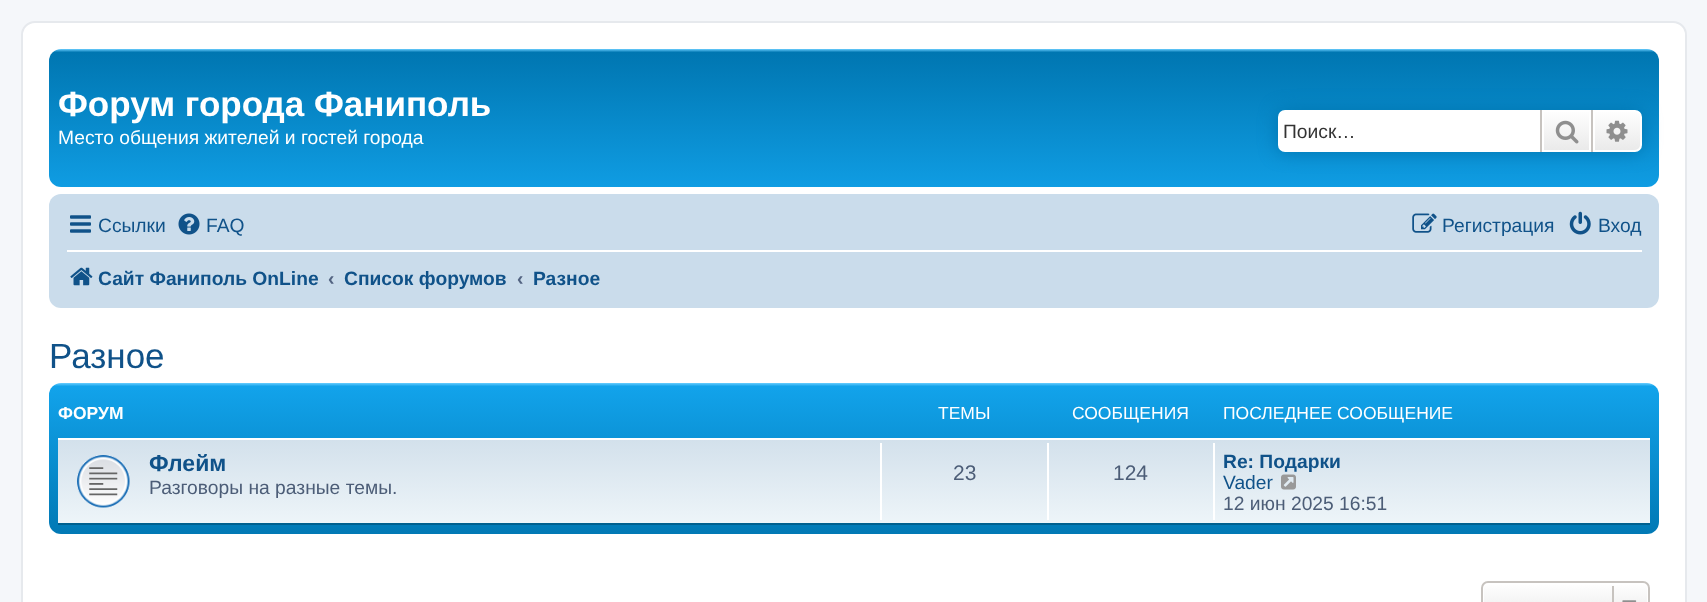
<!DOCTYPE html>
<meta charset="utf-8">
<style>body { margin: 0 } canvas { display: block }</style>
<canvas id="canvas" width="1707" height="602"></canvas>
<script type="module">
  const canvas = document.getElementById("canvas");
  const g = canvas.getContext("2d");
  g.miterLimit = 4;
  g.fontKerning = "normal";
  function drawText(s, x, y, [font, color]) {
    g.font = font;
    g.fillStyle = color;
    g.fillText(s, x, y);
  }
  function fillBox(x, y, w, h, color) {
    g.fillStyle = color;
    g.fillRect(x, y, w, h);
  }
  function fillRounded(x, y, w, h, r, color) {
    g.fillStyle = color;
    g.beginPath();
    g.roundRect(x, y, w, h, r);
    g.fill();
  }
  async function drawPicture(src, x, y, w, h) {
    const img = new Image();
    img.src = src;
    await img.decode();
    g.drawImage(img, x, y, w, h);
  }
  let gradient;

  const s1 = ["bold 35px Liberation Sans", "#FFFFFF"];
  const s2 = ["19.25px Liberation Sans", "#FFFFFF"];
  const s3 = ["19.25px Liberation Sans", "#333333"];
  const s4 = ["19.25px Liberation Sans", "#105289"];
  const s5 = ["bold 19.25px Liberation Sans", "#105289"];
  const s6 = ["bold 19.25px Liberation Sans", "#536482"];
  const s7 = ["35px Liberation Sans", "#105289"];
  const s8 = ["bold 17.5px Liberation Sans", "#FFFFFF"];
  const s9 = ["17.5px Liberation Sans", "#FFFFFF"];
  const s10 = ["bold 23px Liberation Sans", "#105289"];
  const s11 = ["19.25px Liberation Sans", "#4C5D77"];
  const s12 = ["21px Liberation Sans", "#4C5D77"];

  fillBox(0, 0, 1707, 602, "#F5F7FA");
  g.fillStyle = "#FFFFFF";
  g.beginPath();
  g.roundRect(22, 22, 1664, 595, 13);
  g.fill();
  g.strokeStyle = "#E6E9ED";
  g.lineWidth = 2;
  g.stroke();
  gradient = g.createLinearGradient(854, 49, 854, 210);
  gradient.addColorStop(0, "#6ACEFF");
  gradient.addColorStop(0.02, "#0076B1");
  gradient.addColorStop(1, "#12A3EB");
  g.fillStyle = gradient;
  g.beginPath();
  g.roundRect(49, 49, 1610, 138, 12);
  g.fill();
  drawText("Форум города Фаниполь", 58, 116, s1);
  drawText("Место общения жителей и гостей города", 58, 144, s2);
  g.fillStyle = "#0075B0";
  g.filter = "blur(9px)";
  g.beginPath();
  g.roundRect(1278, 110, 364, 42, 7);
  g.fill();
  g.filter = "none";
  g.fillStyle = "#FFFFFF";
  g.beginPath();
  g.roundRect(1278, 110, 262, 42, [7, 0, 0, 7]);
  g.fill();
  drawText("Поиск…", 1283, 138, s3);
  gradient = g.createLinearGradient(1566, 110, 1566, 152);
  gradient.addColorStop(0, "#FFFFFF");
  gradient.addColorStop(1, "#E9E9E9");
  g.fillStyle = gradient;
  g.fillRect(1544, 112, 45, 38);
  g.strokeStyle = "#FFFFFF";
  g.strokeRect(1543, 111, 47, 40);
  fillBox(1591, 110, 2, 42, "#C7C3BF");
  fillBox(1540, 110, 2, 42, "#C7C3BF");
  await drawPicture("pic1.png", 1555, 120, 24, 24);
  gradient = g.createLinearGradient(1617, 110, 1617, 152);
  gradient.addColorStop(0, "#FFFFFF");
  gradient.addColorStop(1, "#E9E9E9");
  g.fillStyle = gradient;
  g.beginPath();
  g.roundRect(1594, 111, 47, 40, [0, 6, 6, 0]);
  g.fill();
  g.stroke();
  await drawPicture("pic2.png", 1606, 120, 22, 22);
  fillRounded(49, 194, 1610, 114, 12, "#CADCEB");
  await drawPicture("pic3.png", 70, 215, 21, 18);
  drawText("Ссылки", 98, 232, s4);
  await drawPicture("pic4.png", 178, 213, 22, 22);
  drawText("FAQ", 206, 232, s4);
  await drawPicture("pic5.png", 1412, 213, 25, 20);
  drawText("Регистрация", 1442, 232, s4);
  await drawPicture("pic6.png", 1569, 211, 22, 24);
  drawText("Вход", 1598, 232, s4);
  fillBox(67, 250, 1575, 2, "#FFFFFF");
  await drawPicture("pic7.png", 70, 267, 23, 19);
  drawText("Сайт Фаниполь OnLine", 98, 285, s5);
  drawText("‹", 328, 285, s6);
  drawText("Список форумов", 344, 285, s5);
  drawText("‹", 517, 285, s6);
  drawText("Разное", 533, 285, s5);
  drawText("Разное", 49, 368, s7);
  gradient = g.createLinearGradient(854, 383, 854, 544);
  gradient.addColorStop(0, "#6ACEFF");
  gradient.addColorStop(0.02, "#12A3EB");
  gradient.addColorStop(1, "#0076B1");
  g.fillStyle = gradient;
  g.beginPath();
  g.roundRect(49, 383, 1610, 151, 12);
  g.fill();
  drawText("ФОРУМ", 58, 419, s8);
  drawText("ТЕМЫ", 938, 419, s9);
  drawText("СООБЩЕНИЯ", 1072, 419, s9);
  drawText("ПОСЛЕДНЕЕ СООБЩЕНИЕ", 1223, 419, s9);
  gradient = g.createLinearGradient(854, 437, 854, 525);
  gradient.addColorStop(0, "#D2E0EB");
  gradient.addColorStop(1, "#EEF5F9");
  g.fillStyle = gradient;
  g.fillRect(58, 440, 1592, 83);
  fillBox(58, 438, 1592, 2, "#FFFFFF");
  fillBox(58, 523, 1592, 2, "#00608F");
  await drawPicture("pic8.png", 77, 455, 53, 53);
  drawText("Флейм", 149, 471, s10);
  drawText("Разговоры на разные темы.", 149, 494, s11);
  fillBox(880, 443, 2, 77, "#FFFFFF");
  drawText("23", 953, 480, s12);
  fillBox(1047, 443, 2, 77, "#FFFFFF");
  drawText("124", 1113, 480, s12);
  fillBox(1213, 443, 2, 77, "#FFFFFF");
  drawText("Re: Подарки", 1223, 468, s5);
  drawText("Vader", 1223, 489, s4);
  await drawPicture("pic9.png", 1281, 474, 15, 16);
  drawText("12 июн 2025 16:51", 1223, 510, s11);
  g.save();
  g.beginPath();
  g.roundRect(1481, 581, 169, 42, 7);
  g.clip();
  gradient = g.createLinearGradient(1565, 583, 1565, 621);
  gradient.addColorStop(0, "#FFFFFF");
  gradient.addColorStop(1, "#E9E9E9");
  g.fillStyle = gradient;
  g.fillRect(1481, 583, 169, 19);
  g.restore();
  g.beginPath();
  g.roundRect(1483, 584, 165, 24, 4);
  g.stroke();
  g.beginPath();
  g.roundRect(1482, 582, 167, 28, 6);
  g.strokeStyle = "#C7C3BF";
  g.stroke();
  fillBox(1612, 586, 2, 16, "#C7C3BF");
  await drawPicture("pic10.png", 1622, 600, 15, 2);
</script>
